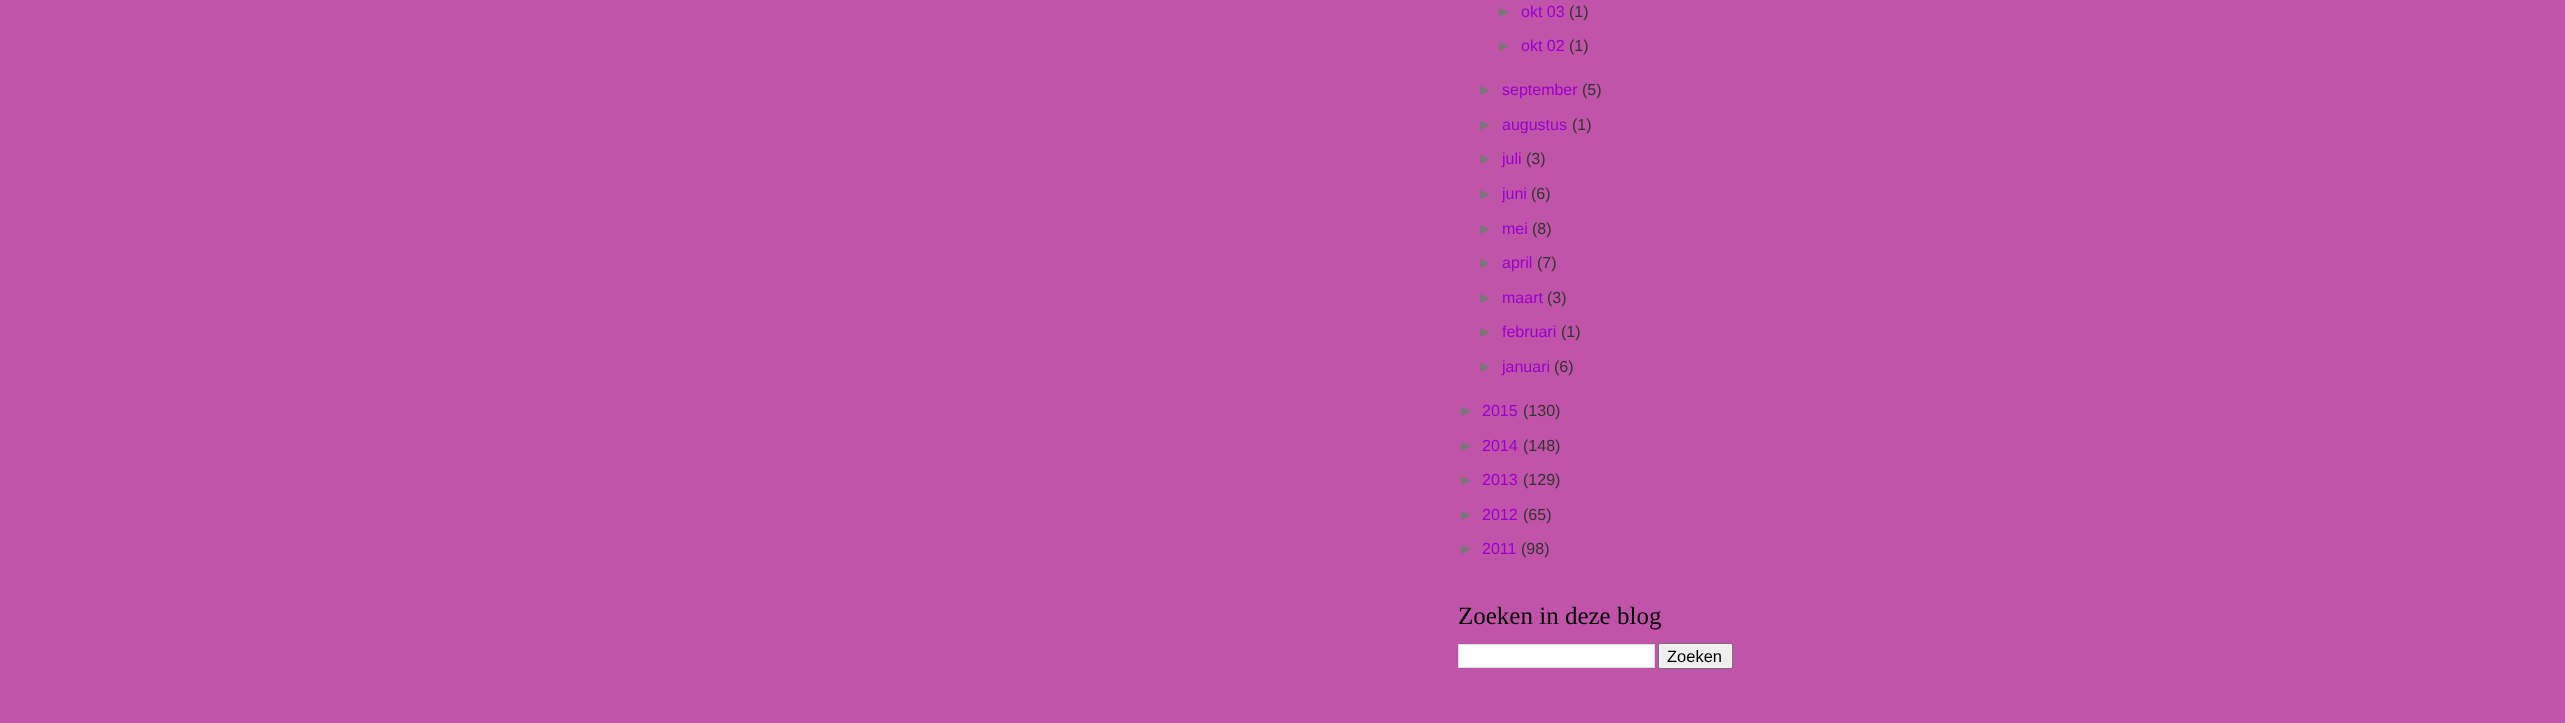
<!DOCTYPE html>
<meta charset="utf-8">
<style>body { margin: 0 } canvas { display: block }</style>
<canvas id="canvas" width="2565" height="723"></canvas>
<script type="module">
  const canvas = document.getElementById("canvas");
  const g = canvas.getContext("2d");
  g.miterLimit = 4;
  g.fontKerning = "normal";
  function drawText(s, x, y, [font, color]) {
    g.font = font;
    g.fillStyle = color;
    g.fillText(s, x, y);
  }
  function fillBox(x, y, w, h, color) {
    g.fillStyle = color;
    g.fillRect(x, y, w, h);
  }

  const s1 = ["16px Liberation Sans", "#777777"];
  const s2 = ["16px Liberation Sans", "#9900CC"];
  const s3 = ["16px Liberation Sans", "#333333"];
  const s4 = ["25px Liberation Serif", "#000000"];
  const s5 = ["16.5px Liberation Sans", "#000000"];

  fillBox(0, 0, 2565, 723, "#C054A8");
  drawText("►", 1496, 17, s1);
  drawText("okt 03", 1521, 17, s2);
  drawText("(1)", 1569, 17, s3);
  drawText("►", 1496, 51, s1);
  drawText("okt 02", 1521, 51, s2);
  drawText("(1)", 1569, 51, s3);
  drawText("►", 1477, 95, s1);
  drawText("september", 1502, 95, s2);
  drawText("(5)", 1582, 95, s3);
  drawText("►", 1477, 130, s1);
  drawText("augustus", 1502, 130, s2);
  drawText("(1)", 1572, 130, s3);
  drawText("►", 1477, 164, s1);
  drawText("juli", 1502, 164, s2);
  drawText("(3)", 1526, 164, s3);
  drawText("►", 1477, 199, s1);
  drawText("juni", 1502, 199, s2);
  drawText("(6)", 1531, 199, s3);
  drawText("►", 1477, 234, s1);
  drawText("mei", 1502, 234, s2);
  drawText("(8)", 1532, 234, s3);
  drawText("►", 1477, 268, s1);
  drawText("april", 1502, 268, s2);
  drawText("(7)", 1537, 268, s3);
  drawText("►", 1477, 303, s1);
  drawText("maart", 1502, 303, s2);
  drawText("(3)", 1547, 303, s3);
  drawText("►", 1477, 337, s1);
  drawText("februari", 1502, 337, s2);
  drawText("(1)", 1561, 337, s3);
  drawText("►", 1477, 372, s1);
  drawText("januari", 1502, 372, s2);
  drawText("(6)", 1554, 372, s3);
  drawText("►", 1458, 416, s1);
  drawText("2015", 1482, 416, s2);
  drawText("(130)", 1523, 416, s3);
  drawText("►", 1458, 451, s1);
  drawText("2014", 1482, 451, s2);
  drawText("(148)", 1523, 451, s3);
  drawText("►", 1458, 485, s1);
  drawText("2013", 1482, 485, s2);
  drawText("(129)", 1523, 485, s3);
  drawText("►", 1458, 520, s1);
  drawText("2012", 1482, 520, s2);
  drawText("(65)", 1523, 520, s3);
  drawText("►", 1458, 554, s1);
  drawText("2011", 1482, 554, s2);
  drawText("(98)", 1521, 554, s3);
  drawText("Zoeken in deze blog", 1458, 624, s4);
  g.fillStyle = "#FFFFFF";
  g.beginPath();
  g.rect(1458.5, 644.5, 196, 23);
  g.fill();
  g.strokeStyle = "#DDDDDD";
  g.stroke();
  g.fillStyle = "#EFEFEF";
  g.beginPath();
  g.roundRect(1658.5, 643.5, 74, 25, 2);
  g.fill();
  g.strokeStyle = "#767676";
  g.stroke();
  drawText("Zoeken", 1667, 662, s5);
</script>
